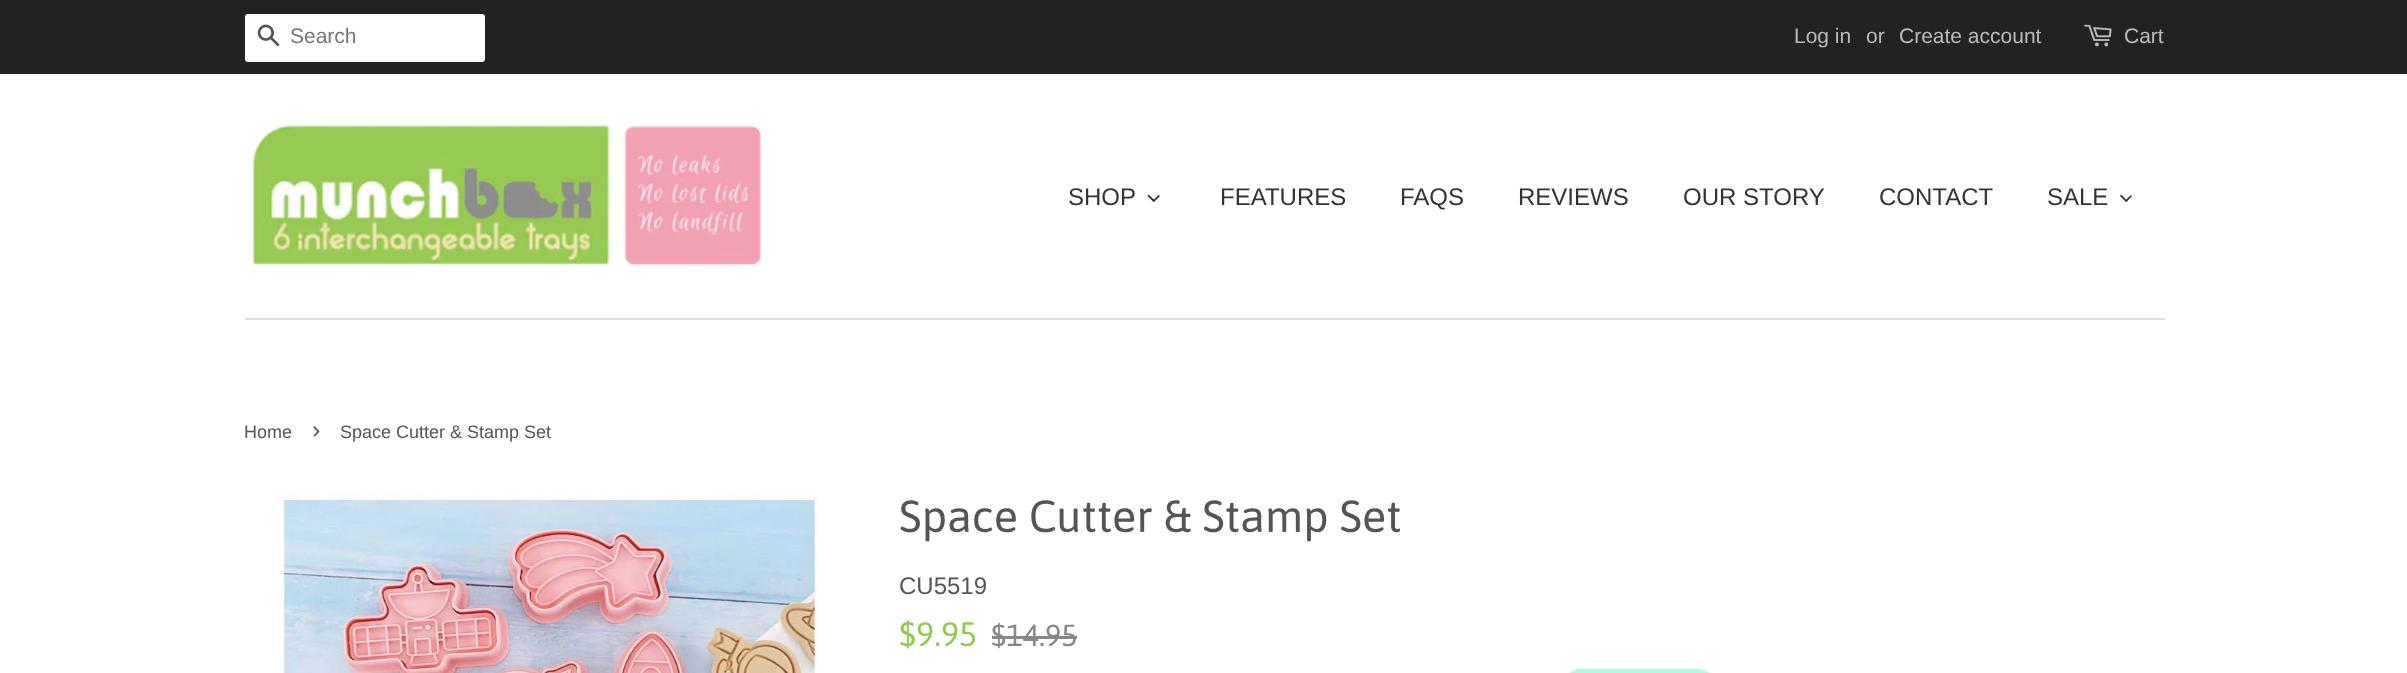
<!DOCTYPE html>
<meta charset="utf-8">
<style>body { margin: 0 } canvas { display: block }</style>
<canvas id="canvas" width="2407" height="673"></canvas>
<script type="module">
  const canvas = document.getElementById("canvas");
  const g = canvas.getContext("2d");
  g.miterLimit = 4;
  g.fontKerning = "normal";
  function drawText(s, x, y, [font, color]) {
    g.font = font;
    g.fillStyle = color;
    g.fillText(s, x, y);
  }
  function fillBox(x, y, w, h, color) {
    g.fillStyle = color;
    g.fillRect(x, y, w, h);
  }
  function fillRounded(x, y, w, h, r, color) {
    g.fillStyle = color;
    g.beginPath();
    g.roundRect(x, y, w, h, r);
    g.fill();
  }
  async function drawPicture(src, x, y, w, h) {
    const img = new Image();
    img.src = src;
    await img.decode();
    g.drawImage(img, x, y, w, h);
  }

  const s1 = ["21px Liberation Sans", "#757575"];
  const s2 = ["21px Liberation Sans", "#BBBBBB"];
  const s3 = ["24px Liberation Sans", "#333333"];
  const s4 = ["18px Liberation Sans", "#555555"];
  const s5 = ["25px Liberation Sans", "#555555"];
  const s6 = ["45px Asap", "#555555"];
  const s7 = ["24px Liberation Sans", "#555555"];
  const s8 = ["34px Asap", "#91CB52"];
  const s9 = ["30.5px Asap", "#888888"];

  fillBox(0, 0, 2407, 673, "#FFFFFF");
  fillBox(0, 0, 2407, 74, "#222222");
  fillRounded(245, 14, 240, 48, 3, "#FFFFFF");
  await drawPicture("pic1.png", 257, 24, 23, 23);
  drawText("Search", 290, 43, s1);
  drawText("Log in", 1794, 43, s2);
  drawText("or", 1866, 43, s2);
  drawText("Create account", 1899, 43, s2);
  await drawPicture("pic2.png", 2084, 24, 28, 23);
  drawText("Cart", 2124, 43, s2);
  fillBox(245, 318, 1920, 2, "#DDDDDD");
  await drawPicture("pic3.png", 245, 122, 517, 150);
  drawText("SHOP", 1068, 205, s3);
  g.beginPath();
  g.moveTo(1158.5, 195);
  g.lineTo(1160, 196);
  g.lineTo(1154, 202);
  g.lineTo(1153, 200.5);
  g.closePath();
  g.fill();
  g.beginPath();
  g.moveTo(1148.5, 194.5);
  g.lineTo(1155, 200.5);
  g.lineTo(1153.5, 202);
  g.lineTo(1147.5, 196);
  g.closePath();
  g.fill();
  drawText("FEATURES", 1220, 205, s3);
  drawText("FAQS", 1400, 205, s3);
  drawText("REVIEWS", 1518, 205, s3);
  drawText("OUR STORY", 1683, 205, s3);
  drawText("CONTACT", 1879, 205, s3);
  drawText("SALE", 2047, 205, s3);
  g.beginPath();
  g.moveTo(2131, 195);
  g.lineTo(2132, 196);
  g.lineTo(2126.5, 202);
  g.lineTo(2125, 200.5);
  g.closePath();
  g.fill();
  g.beginPath();
  g.moveTo(2121, 194.5);
  g.lineTo(2127, 200.5);
  g.lineTo(2126, 202);
  g.lineTo(2120, 196);
  g.closePath();
  g.fill();
  drawText("Home", 244, 438, s4);
  drawText("›", 312, 438, s5);
  drawText("Space Cutter & Stamp Set", 340, 438, s4);
  await drawPicture("pic4.png", 282, 493, 536, 180);
  drawText("Space Cutter & Stamp Set", 899, 532, s6);
  drawText("CU5519", 899, 594, s7);
  drawText("$9.95", 899, 646, s8);
  drawText("$14.95", 991, 646, s9);
  fillBox(992, 636, 85, 3, "#888888");
  await drawPicture("pic5.png", 1569, 669, 142, 4);
</script>
